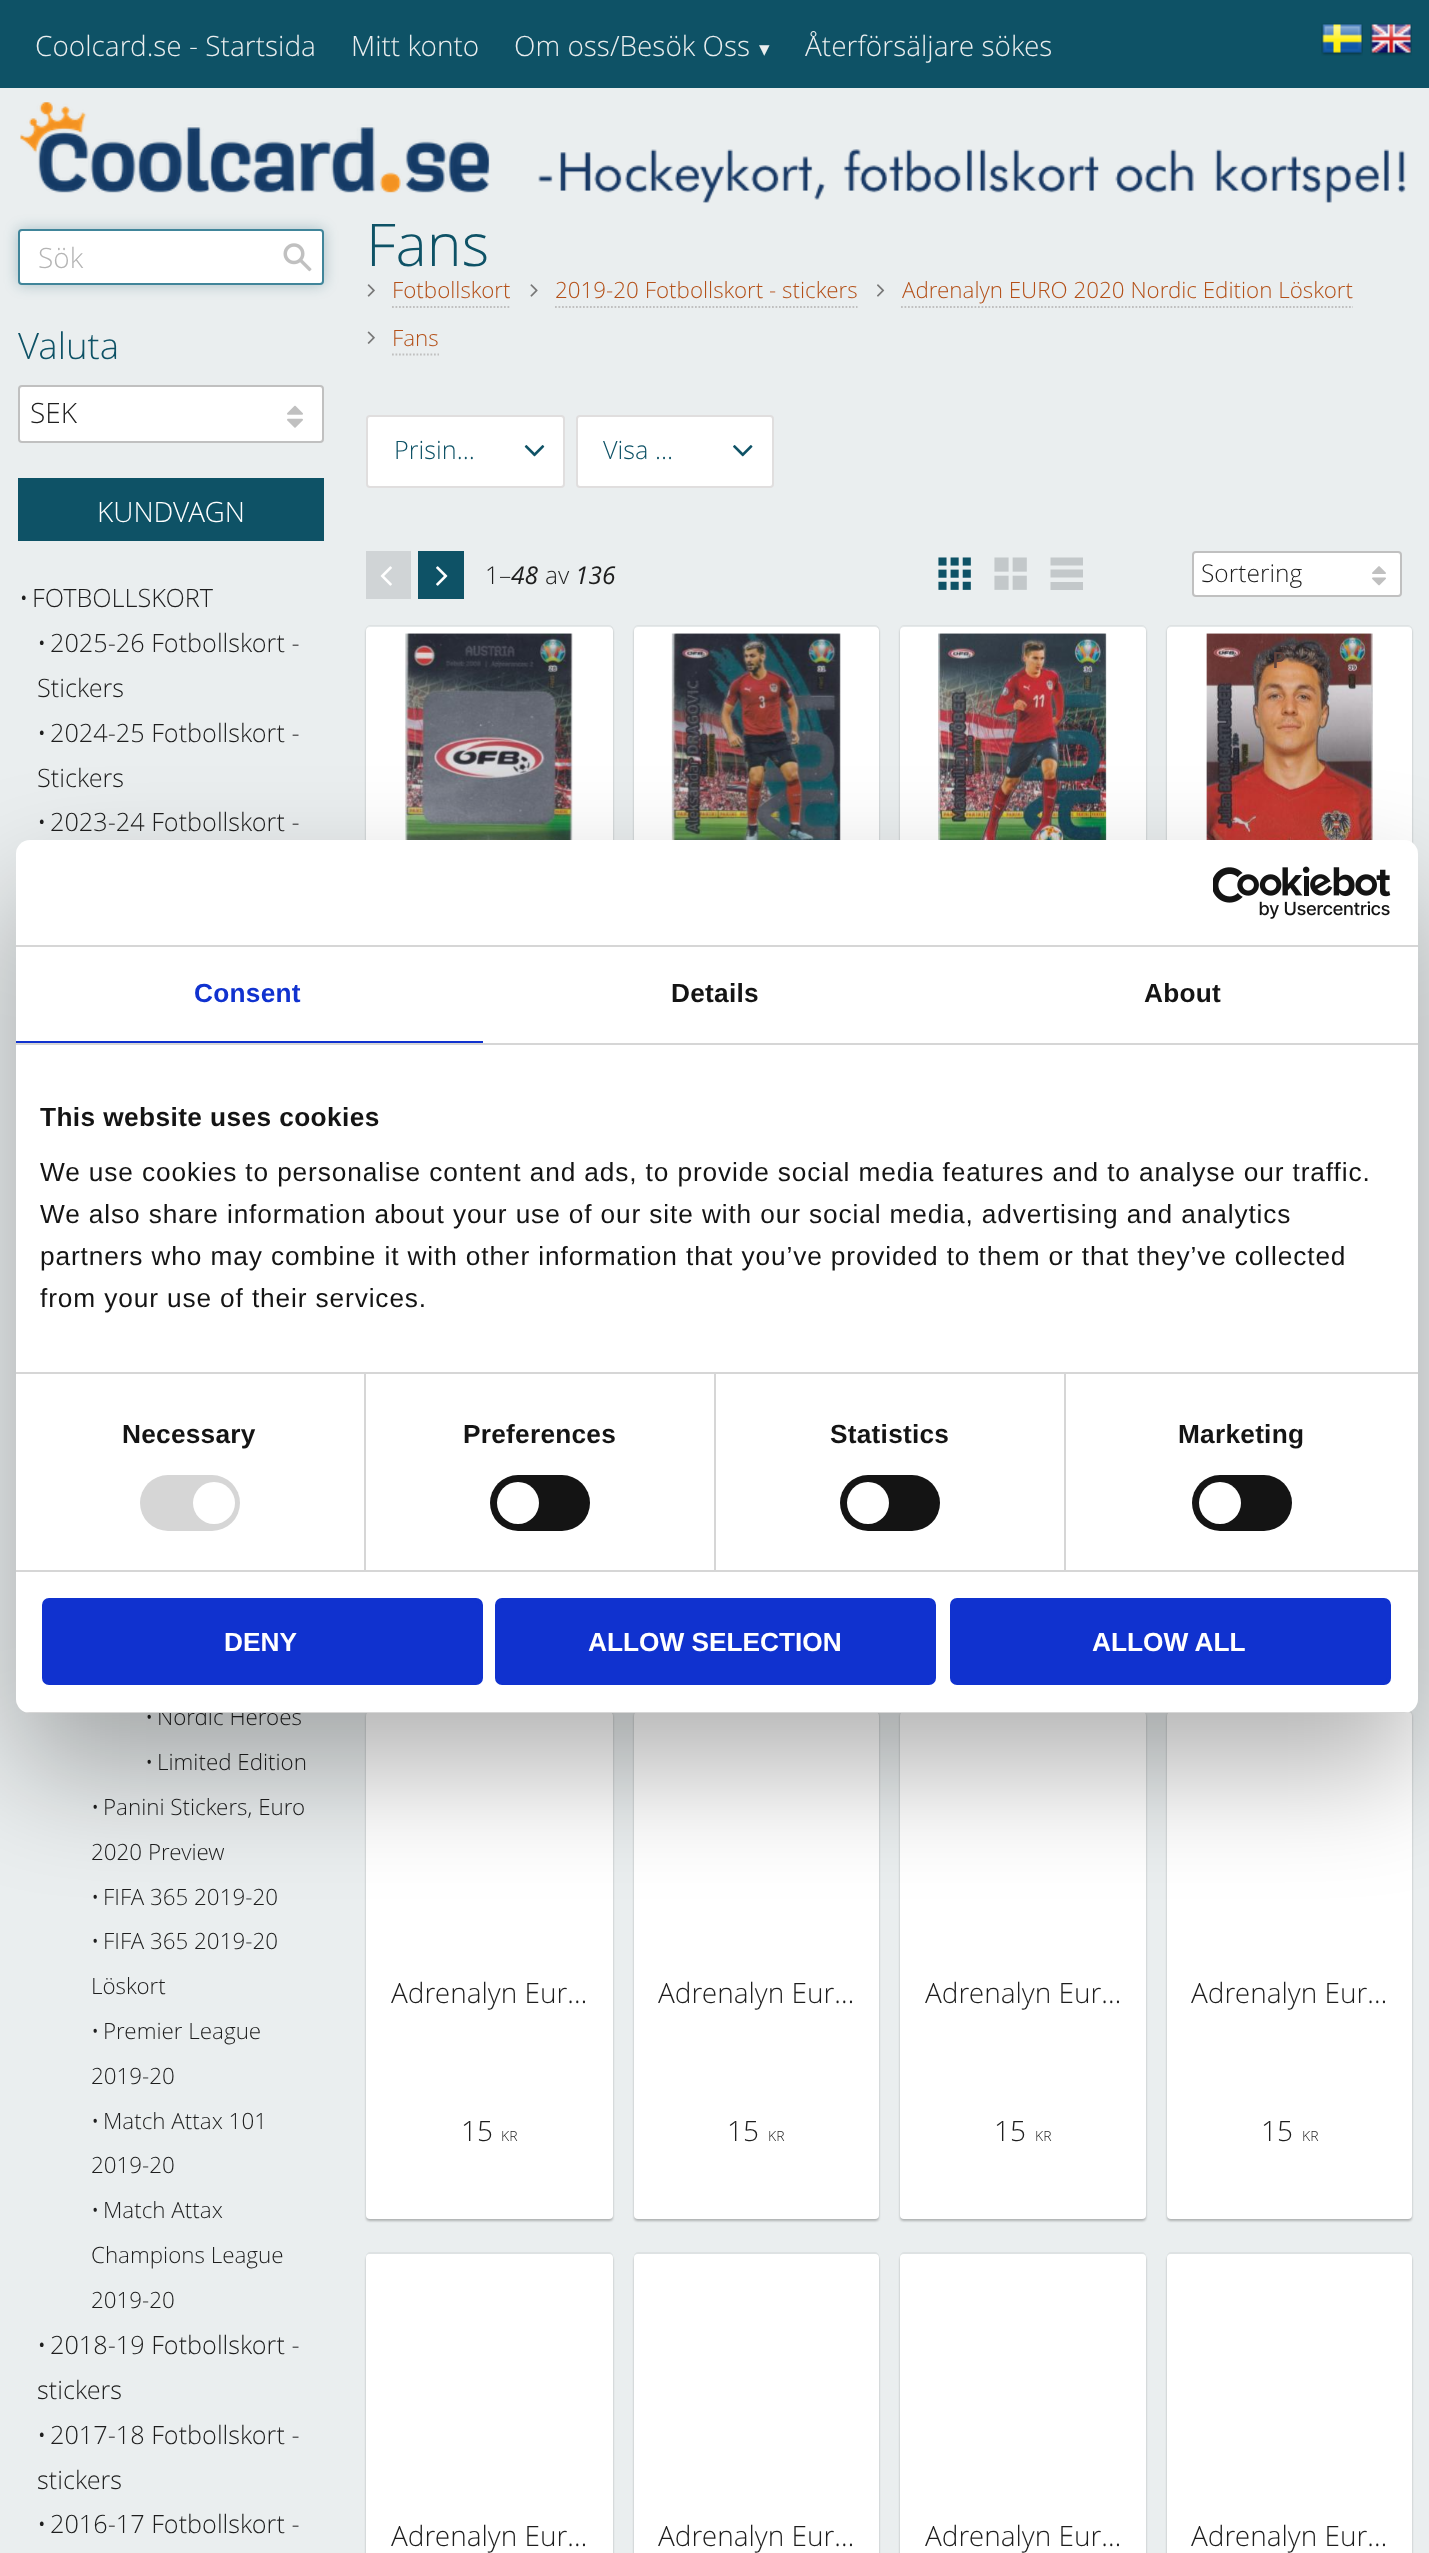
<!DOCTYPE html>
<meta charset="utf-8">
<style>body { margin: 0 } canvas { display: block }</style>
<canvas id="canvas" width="1429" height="2553"></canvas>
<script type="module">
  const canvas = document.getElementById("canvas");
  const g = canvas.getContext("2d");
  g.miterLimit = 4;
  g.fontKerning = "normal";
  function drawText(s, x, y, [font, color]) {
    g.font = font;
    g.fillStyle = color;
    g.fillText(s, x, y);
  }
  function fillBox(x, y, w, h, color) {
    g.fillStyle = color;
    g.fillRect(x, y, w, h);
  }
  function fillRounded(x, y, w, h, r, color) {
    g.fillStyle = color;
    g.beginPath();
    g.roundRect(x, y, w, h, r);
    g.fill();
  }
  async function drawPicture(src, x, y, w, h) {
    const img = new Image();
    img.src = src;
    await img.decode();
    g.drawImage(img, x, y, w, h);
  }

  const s1 = ["300 28px Open Sans", "#EAEEEF"];
  const s2 = ["21px DejaVu Sans", "#EAEEEF"];
  const s3 = ["300 28px Open Sans", "#B4B4B4"];
  const s4 = ["300 36.5px Open Sans", "#0E5266"];
  const s5 = ["300 28px Open Sans", "#1E1E1E"];
  const s6 = ["300 28px Open Sans", "#FFFFFF"];
  const s7 = ["300 25.25px Open Sans", "#1E1E1E"];
  const s8 = ["300 22.4px Open Sans", "#1E1E1E"];
  const s9 = ["300 59px Open Sans", "#0E5266"];
  const s10 = ["300 22.4px Open Sans", "#B45018"];
  const s11 = ["300 25.25px Open Sans", "#0E5266"];
  const s12 = ["300 24.5px Open Sans", "#1E1E1E"];
  const s13 = ["italic 24.5px Open Sans", "#1E1E1E"];
  const s14 = ["600 22.4px Open Sans", "#61433D"];
  const s15 = ["300 14px Open Sans", "#1E1E1E"];
  const s16 = ["bold 26.25px Liberation Sans", "#1032CF"];
  const s17 = ["bold 26.25px Liberation Sans", "#141414"];
  const s18 = ["26.25px Liberation Sans", "#141414"];
  const s19 = ["bold 26.25px Liberation Sans", "#FFFFFF"];

  fillBox(0, 0, 1429, 2553, "#EAEEEF");
  fillBox(0, 0, 1429, 88, "#0E5266");
  drawText("Coolcard.se - Startsida", 35, 56, s1);
  drawText("Mitt konto", 351, 56, s1);
  drawText("Om oss/Besök Oss", 514, 56, s1);
  drawText("▾", 759, 56, s2);
  drawText("Återförsäljare sökes", 805, 56, s1);
  await drawPicture("pic1.png", 1321, 23, 42, 33);
  await drawPicture("pic2.png", 1370, 23, 42, 33);
  await drawPicture("pic3.png", 20, 102, 1386, 101);
  g.fillStyle = "rgba(14, 82, 102, 0.3)";
  g.filter = "blur(7px)";
  g.beginPath();
  g.roundRect(18, 229, 306, 56, 4);
  g.fill();
  g.filter = "none";
  g.fillStyle = "#FFFFFF";
  g.beginPath();
  g.roundRect(19, 230, 304, 54, 3);
  g.fill();
  g.strokeStyle = "#40859A";
  g.lineWidth = 2;
  g.stroke();
  drawText("Sök", 38, 268, s3);
  await drawPicture("pic4.png", 283, 243, 29, 29);
  drawText("Valuta", 18, 359, s4);
  g.fillStyle = "#FFFFFF";
  g.beginPath();
  g.roundRect(19, 386, 304, 56, 3);
  g.fill();
  g.strokeStyle = "#C0C0C0";
  g.stroke();
  drawText("SEK", 30, 423, s5);
  await drawPicture("pic5.png", 287, 405, 16, 23);
  fillBox(18, 478, 306, 63, "#0E5266");
  drawText("KUNDVAGN", 97, 522, s6);
  drawText("•", 19, 607, s7);
  drawText("FOTBOLLSKORT", 32, 607, s7);
  drawText("•", 37, 652, s7);
  drawText("2025-26 Fotbollskort -", 50, 652, s7);
  drawText("Stickers", 37, 697, s7);
  drawText("•", 37, 742, s7);
  drawText("2024-25 Fotbollskort -", 50, 742, s7);
  drawText("Stickers", 37, 787, s7);
  drawText("•", 37, 831, s7);
  drawText("2023-24 Fotbollskort -", 50, 831, s7);
  drawText("•", 145, 1725, s8);
  drawText("Nordic Heroes", 157, 1725, s8);
  drawText("•", 145, 1770, s8);
  drawText("Limited Edition", 157, 1770, s8);
  drawText("•", 91, 1815, s8);
  drawText("Panini Stickers, Euro", 103, 1815, s8);
  drawText("2020 Preview", 91, 1860, s8);
  drawText("•", 91, 1905, s8);
  drawText("FIFA 365 2019-20", 103, 1905, s8);
  drawText("•", 91, 1949, s8);
  drawText("FIFA 365 2019-20", 103, 1949, s8);
  drawText("Löskort", 91, 1994, s8);
  drawText("•", 91, 2039, s8);
  drawText("Premier League", 103, 2039, s8);
  drawText("2019-20", 91, 2084, s8);
  drawText("•", 91, 2129, s8);
  drawText("Match Attax 101", 103, 2129, s8);
  drawText("2019-20", 91, 2173, s8);
  drawText("•", 91, 2218, s8);
  drawText("Match Attax", 103, 2218, s8);
  drawText("Champions League", 91, 2263, s8);
  drawText("2019-20", 91, 2308, s8);
  drawText("•", 37, 2354, s7);
  drawText("2018-19 Fotbollskort -", 50, 2354, s7);
  drawText("stickers", 37, 2399, s7);
  drawText("•", 37, 2444, s7);
  drawText("2017-18 Fotbollskort -", 50, 2444, s7);
  drawText("stickers", 37, 2489, s7);
  drawText("•", 37, 2533, s7);
  drawText("2016-17 Fotbollskort -", 50, 2533, s7);
  drawText("Fans", 366, 266, s9);
  await drawPicture("pic6.png", 367, 284, 8, 13);
  drawText("Fotbollskort", 392, 298, s10);
  g.beginPath();
  g.moveTo(392, 307);
  g.lineTo(511, 307);
  g.lineWidth = 1.8;
  g.setLineDash([1.75, 1.75]);
  g.stroke();
  await drawPicture("pic7.png", 530, 284, 8, 13);
  drawText("2019-20 Fotbollskort - stickers", 555, 298, s10);
  g.beginPath();
  g.moveTo(555, 307);
  g.lineTo(857.5, 307);
  g.stroke();
  await drawPicture("pic8.png", 877, 284, 8, 13);
  drawText("Adrenalyn EURO 2020 Nordic Edition Löskort", 902, 298, s10);
  g.beginPath();
  g.moveTo(901, 307);
  g.lineTo(1353, 307);
  g.stroke();
  await drawPicture("pic9.png", 367, 331, 8, 13);
  drawText("Fans", 392, 346, s10);
  g.beginPath();
  g.moveTo(392, 354.5);
  g.lineTo(439, 354.5);
  g.stroke();
  g.fillStyle = "#FFFFFF";
  g.beginPath();
  g.roundRect(367, 416, 197, 71, 3);
  g.fill();
  g.strokeStyle = "#E0DEDE";
  g.lineWidth = 2;
  g.setLineDash([]);
  g.stroke();
  drawText("Prisin…", 394, 459, s11);
  await drawPicture("pic10.png", 524, 445, 21, 12);
  g.fillStyle = "#FFFFFF";
  g.beginPath();
  g.roundRect(577, 416, 196, 71, 3);
  g.fill();
  g.stroke();
  drawText("Visa …", 603, 459, s11);
  await drawPicture("pic11.png", 733, 445, 20, 12);
  fillBox(366, 551, 45, 48, "#D0D4D6");
  await drawPicture("pic12.png", 380, 566, 12, 20);
  fillBox(418, 551, 46, 48, "#0E5266");
  await drawPicture("pic13.png", 436, 566, 12, 20);
  drawText("1–", 485, 584, s12);
  drawText("48", 511, 584, s13);
  drawText("av", 545, 584, s12);
  drawText("136", 575, 584, s13);
  await drawPicture("pic14.png", 938, 557, 33, 33);
  await drawPicture("pic15.png", 994, 557, 33, 33);
  g.fillStyle = "#C3C8CA";
  g.beginPath();
  g.moveTo(1050.5, 557.5);
  g.lineTo(1050.5, 565.5);
  g.lineTo(1083, 565.5);
  g.lineTo(1083, 557.5);
  g.closePath();
  g.moveTo(1050.5, 577.5);
  g.lineTo(1083, 577.5);
  g.lineTo(1083, 569.5);
  g.lineTo(1050.5, 569.5);
  g.closePath();
  g.moveTo(1050.5, 590);
  g.lineTo(1083, 590);
  g.lineTo(1083, 582);
  g.lineTo(1050.5, 582);
  g.closePath();
  g.fill();
  g.fillStyle = "#FFFFFF";
  g.beginPath();
  g.roundRect(1193, 552, 208, 44, 3);
  g.fill();
  g.strokeStyle = "#C0C0C0";
  g.stroke();
  drawText("Sortering", 1201, 582, s12);
  await drawPicture("pic16.png", 1372, 566, 14, 20);
  g.fillStyle = "#DEE2E3";
  g.beginPath();
  g.moveTo(370, 625);
  g.bezierCurveTo(368, 625, 366, 627, 366, 629);
  g.bezierCurveTo(367, 627, 368, 626, 369, 626);
  g.lineTo(609, 626);
  g.bezierCurveTo(611, 626, 612, 628, 612, 630);
  g.lineTo(612, 1130);
  g.lineTo(613, 1128);
  g.lineTo(613, 629);
  g.bezierCurveTo(613, 627, 611, 625, 609, 625);
  g.closePath();
  g.fill();
  g.fillStyle = "rgba(0, 0, 0, 0.25)";
  g.filter = "blur(1px)";
  g.beginPath();
  g.roundRect(366, 628, 247, 508, 4);
  g.fill();
  g.filter = "none";
  fillRounded(366, 627, 247, 507, 4, "#FFFFFF");
  await drawPicture("pic17.png", 405, 633, 168, 207);
  g.fillStyle = "#DEE2E3";
  g.beginPath();
  g.moveTo(638, 625);
  g.bezierCurveTo(636, 625, 635, 626, 634, 628);
  g.bezierCurveTo(635, 627, 636, 626, 637, 626);
  g.lineTo(875, 626);
  g.bezierCurveTo(877, 626, 878, 628, 878, 630);
  g.lineTo(878, 1130);
  g.lineTo(879, 1128);
  g.lineTo(879, 629);
  g.bezierCurveTo(879, 627, 877, 625, 875, 625);
  g.closePath();
  g.fill();
  g.fillStyle = "rgba(0, 0, 0, 0.25)";
  g.filter = "blur(1px)";
  g.beginPath();
  g.roundRect(634, 628, 245, 508, 4);
  g.fill();
  g.filter = "none";
  fillRounded(634, 627, 245, 507, 4, "#FFFFFF");
  await drawPicture("pic18.png", 671, 633, 170, 207);
  g.fillStyle = "#DEE2E3";
  g.beginPath();
  g.moveTo(904, 625);
  g.bezierCurveTo(902, 625, 901, 626, 900, 628);
  g.bezierCurveTo(901, 627, 902, 626, 903, 626);
  g.lineTo(1143, 626);
  g.bezierCurveTo(1144, 626, 1145, 627, 1146, 629);
  g.bezierCurveTo(1146, 627, 1144, 625, 1142, 625);
  g.closePath();
  g.fill();
  g.fillStyle = "rgba(0, 0, 0, 0.25)";
  g.filter = "blur(1px)";
  g.beginPath();
  g.roundRect(900, 628, 246, 508, 4);
  g.fill();
  g.filter = "none";
  fillRounded(900, 627, 246, 507, 4, "#FFFFFF");
  await drawPicture("pic19.png", 938, 633, 169, 207);
  g.fillStyle = "#DEE2E3";
  g.beginPath();
  g.moveTo(1171, 625);
  g.bezierCurveTo(1169, 625, 1167, 627, 1167, 629);
  g.lineTo(1167, 1129);
  g.lineTo(1167, 630);
  g.bezierCurveTo(1167, 628, 1169, 626, 1171, 626);
  g.lineTo(1409, 626);
  g.bezierCurveTo(1410, 626, 1411, 627, 1412, 629);
  g.bezierCurveTo(1412, 627, 1410, 625, 1408, 625);
  g.closePath();
  g.fill();
  g.fillStyle = "rgba(0, 0, 0, 0.25)";
  g.filter = "blur(1px)";
  g.beginPath();
  g.roundRect(1167, 628, 245, 508, 4);
  g.fill();
  g.filter = "none";
  fillRounded(1167, 627, 245, 507, 4, "#FFFFFF");
  await drawPicture("pic20.png", 1206, 633, 167, 207);
  drawText("P", 1272, 668, s14);
  g.fillStyle = "#DEE2E3";
  g.beginPath();
  g.moveTo(370, 1710);
  g.bezierCurveTo(368, 1710, 366, 1712, 366, 1714);
  g.bezierCurveTo(367, 1712, 368, 1712, 369, 1712);
  g.lineTo(609, 1712);
  g.bezierCurveTo(611, 1712, 612, 1713, 612, 1715);
  g.lineTo(612, 2215);
  g.lineTo(613, 2213);
  g.lineTo(613, 1714);
  g.bezierCurveTo(613, 1712, 611, 1710, 609, 1710);
  g.closePath();
  g.fill();
  g.fillStyle = "rgba(0, 0, 0, 0.25)";
  g.filter = "blur(1px)";
  g.beginPath();
  g.roundRect(366, 1713, 247, 508, 4);
  g.fill();
  g.filter = "none";
  fillRounded(366, 1712, 247, 507, 4, "#FFFFFF");
  drawText("Adrenalyn Eur…", 391, 2003, s5);
  drawText("15", 461, 2141, s5);
  drawText("KR", 501, 2141, s15);
  g.fillStyle = "#DEE2E3";
  g.beginPath();
  g.moveTo(638, 1710);
  g.bezierCurveTo(636, 1710, 635, 1711, 634, 1713);
  g.bezierCurveTo(635, 1712, 636, 1712, 637, 1712);
  g.lineTo(875, 1712);
  g.bezierCurveTo(877, 1712, 878, 1713, 878, 1715);
  g.lineTo(878, 2215);
  g.lineTo(879, 2213);
  g.lineTo(879, 1714);
  g.bezierCurveTo(879, 1712, 877, 1710, 875, 1710);
  g.closePath();
  g.fill();
  g.fillStyle = "rgba(0, 0, 0, 0.25)";
  g.filter = "blur(1px)";
  g.beginPath();
  g.roundRect(634, 1713, 245, 508, 4);
  g.fill();
  g.filter = "none";
  fillRounded(634, 1712, 245, 507, 4, "#FFFFFF");
  drawText("Adrenalyn Eur…", 658, 2003, s5);
  drawText("15", 727, 2141, s5);
  drawText("KR", 768, 2141, s15);
  g.fillStyle = "rgba(0, 0, 0, 0.25)";
  g.filter = "blur(1px)";
  g.beginPath();
  g.roundRect(900, 1713, 246, 508, 4);
  g.fill();
  g.filter = "none";
  fillRounded(900, 1712, 246, 507, 4, "#FFFFFF");
  drawText("Adrenalyn Eur…", 925, 2003, s5);
  drawText("15", 994, 2141, s5);
  drawText("KR", 1035, 2141, s15);
  g.fillStyle = "#DEE2E3";
  g.beginPath();
  g.moveTo(1171, 1710);
  g.bezierCurveTo(1169, 1710, 1167, 1712, 1167, 1714);
  g.lineTo(1167, 2214);
  g.lineTo(1167, 1715);
  g.bezierCurveTo(1167, 1713, 1169, 1712, 1171, 1712);
  g.lineTo(1409, 1712);
  g.bezierCurveTo(1410, 1712, 1411, 1712, 1412, 1714);
  g.bezierCurveTo(1412, 1712, 1410, 1710, 1408, 1710);
  g.closePath();
  g.fill();
  g.fillStyle = "rgba(0, 0, 0, 0.25)";
  g.filter = "blur(1px)";
  g.beginPath();
  g.roundRect(1167, 1713, 245, 508, 4);
  g.fill();
  g.filter = "none";
  fillRounded(1167, 1712, 245, 507, 4, "#FFFFFF");
  drawText("Adrenalyn Eur…", 1191, 2003, s5);
  drawText("15", 1261, 2141, s5);
  drawText("KR", 1302, 2141, s15);
  g.fillStyle = "#DEE2E3";
  g.beginPath();
  g.moveTo(370, 2252);
  g.bezierCurveTo(368, 2252, 366, 2254, 366, 2256);
  g.lineTo(368, 2254);
  g.lineTo(609, 2254);
  g.bezierCurveTo(611, 2254, 612, 2256, 612, 2258);
  g.lineTo(612, 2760);
  g.lineTo(613, 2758);
  g.lineTo(613, 2256);
  g.bezierCurveTo(613, 2254, 611, 2252, 609, 2252);
  g.closePath();
  g.fill();
  g.fillStyle = "rgba(0, 0, 0, 0.25)";
  g.filter = "blur(1px)";
  g.beginPath();
  g.roundRect(366, 2256, 247, 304, 4);
  g.fill();
  g.filter = "none";
  fillRounded(366, 2254, 247, 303, 4, "#FFFFFF");
  drawText("Adrenalyn Eur…", 391, 2546, s5);
  g.fillStyle = "#DEE2E3";
  g.beginPath();
  g.moveTo(638, 2252);
  g.bezierCurveTo(636, 2252, 634, 2254, 634, 2256);
  g.bezierCurveTo(635, 2255, 636, 2254, 637, 2254);
  g.lineTo(875, 2254);
  g.bezierCurveTo(877, 2254, 878, 2256, 878, 2258);
  g.lineTo(878, 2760);
  g.lineTo(879, 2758);
  g.lineTo(879, 2256);
  g.bezierCurveTo(879, 2254, 877, 2252, 875, 2252);
  g.closePath();
  g.fill();
  g.fillStyle = "rgba(0, 0, 0, 0.25)";
  g.filter = "blur(1px)";
  g.beginPath();
  g.roundRect(634, 2256, 245, 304, 4);
  g.fill();
  g.filter = "none";
  fillRounded(634, 2254, 245, 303, 4, "#FFFFFF");
  drawText("Adrenalyn Eur…", 658, 2546, s5);
  g.fillStyle = "#DEE2E3";
  g.beginPath();
  g.moveTo(904, 2252);
  g.bezierCurveTo(902, 2252, 900, 2254, 900, 2256);
  g.bezierCurveTo(901, 2255, 902, 2254, 903, 2254);
  g.lineTo(1143, 2254);
  g.bezierCurveTo(1144, 2254, 1145, 2255, 1146, 2256);
  g.bezierCurveTo(1146, 2254, 1144, 2252, 1142, 2252);
  g.closePath();
  g.fill();
  g.fillStyle = "rgba(0, 0, 0, 0.25)";
  g.filter = "blur(1px)";
  g.beginPath();
  g.roundRect(900, 2256, 246, 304, 4);
  g.fill();
  g.filter = "none";
  fillRounded(900, 2254, 246, 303, 4, "#FFFFFF");
  drawText("Adrenalyn Eur…", 925, 2546, s5);
  g.fillStyle = "#DEE2E3";
  g.beginPath();
  g.moveTo(1171, 2252);
  g.bezierCurveTo(1169, 2252, 1167, 2254, 1167, 2256);
  g.lineTo(1167, 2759);
  g.lineTo(1167, 2258);
  g.bezierCurveTo(1167, 2256, 1169, 2254, 1171, 2254);
  g.lineTo(1409, 2254);
  g.bezierCurveTo(1410, 2254, 1411, 2255, 1412, 2256);
  g.bezierCurveTo(1412, 2254, 1410, 2252, 1408, 2252);
  g.closePath();
  g.fill();
  g.fillStyle = "rgba(0, 0, 0, 0.25)";
  g.filter = "blur(1px)";
  g.beginPath();
  g.roundRect(1167, 2256, 245, 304, 4);
  g.fill();
  g.filter = "none";
  fillRounded(1167, 2254, 245, 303, 4, "#FFFFFF");
  drawText("Adrenalyn Eur…", 1191, 2546, s5);
  g.fillStyle = "rgba(0, 0, 0, 0.3)";
  g.filter = "blur(59.5px)";
  g.beginPath();
  g.roundRect(16, 896, 1402, 873, 14);
  g.fill();
  g.filter = "none";
  fillRounded(16, 840, 1402, 873, 14, "#FFFFFF");
  fillBox(16, 945, 1402, 2, "#D6D6D6");
  await drawPicture("pic21.png", 1213, 866, 178, 53);
  fillBox(16, 1043, 1402, 2, "#D6D6D6");
  fillBox(16, 1041, 467, 2, "#1032CF");
  g.letterSpacing = "0.25px";
  drawText("Consent", 194, 1002, s16);
  drawText("Details", 671, 1002, s17);
  drawText("About", 1144, 1002, s17);
  fillBox(16, 1372, 1402, 2, "#D6D6D6");
  g.letterSpacing = "0.4px";
  drawText("This website uses cookies", 40, 1126, s17);
  g.letterSpacing = "0.88px";
  drawText("We use cookies to personalise content and ads, to provide social media features and to analyse our traffic.", 40, 1181, s18);
  drawText("We also share information about your use of our site with our social media, advertising and analytics", 40, 1223, s18);
  drawText("partners who may combine it with other information that you’ve provided to them or that they’ve collected", 40, 1265, s18);
  drawText("from your use of their services.", 40, 1307, s18);
  fillBox(16, 1570, 1402, 2, "#D6D6D6");
  fillBox(364, 1374, 2, 196, "#D6D6D6");
  g.letterSpacing = "0.25px";
  drawText("Necessary", 122, 1443, s17);
  fillRounded(140, 1475, 100, 56, 28, "#D6D6D6");
  g.fillStyle = "#FFFFFF";
  g.beginPath();
  g.arc(214, 1503, 21, 0, Math.PI * 2);
  g.fill();
  fillBox(714, 1374, 2, 196, "#D6D6D6");
  drawText("Preferences", 463, 1443, s17);
  fillRounded(490, 1475, 100, 56, 28, "#141414");
  g.fillStyle = "#FFFFFF";
  g.beginPath();
  g.arc(518, 1503, 21, 0, Math.PI * 2);
  g.fill();
  fillBox(1064, 1374, 2, 196, "#D6D6D6");
  drawText("Statistics", 830, 1443, s17);
  fillRounded(840, 1475, 100, 56, 28, "#141414");
  g.fillStyle = "#FFFFFF";
  g.beginPath();
  g.arc(868, 1503, 21, 0, Math.PI * 2);
  g.fill();
  drawText("Marketing", 1178, 1443, s17);
  fillRounded(1192, 1475, 100, 56, 28, "#141414");
  g.fillStyle = "#FFFFFF";
  g.beginPath();
  g.arc(1220, 1503, 21, 0, Math.PI * 2);
  g.fill();
  g.save();
  g.beginPath();
  g.roundRect(16, 840, 1402, 873, 14);
  g.clip();
  fillBox(25, 1712, 1384, 1, "#D6D6D6");
  g.restore();
  g.fillStyle = "#1032CF";
  g.beginPath();
  g.roundRect(44, 1600, 437, 83, 5);
  g.fill();
  g.strokeStyle = "#1032CF";
  g.lineWidth = 4;
  g.stroke();
  g.letterSpacing = "0px";
  drawText("DENY", 224, 1651, s19);
  g.fillStyle = "#1032CF";
  g.beginPath();
  g.roundRect(497, 1600, 437, 83, 5);
  g.fill();
  g.stroke();
  drawText("ALLOW SELECTION", 588, 1651, s19);
  g.fillStyle = "#1032CF";
  g.beginPath();
  g.roundRect(952, 1600, 437, 83, 5);
  g.fill();
  g.stroke();
  drawText("ALLOW ALL", 1092, 1651, s19);
</script>
